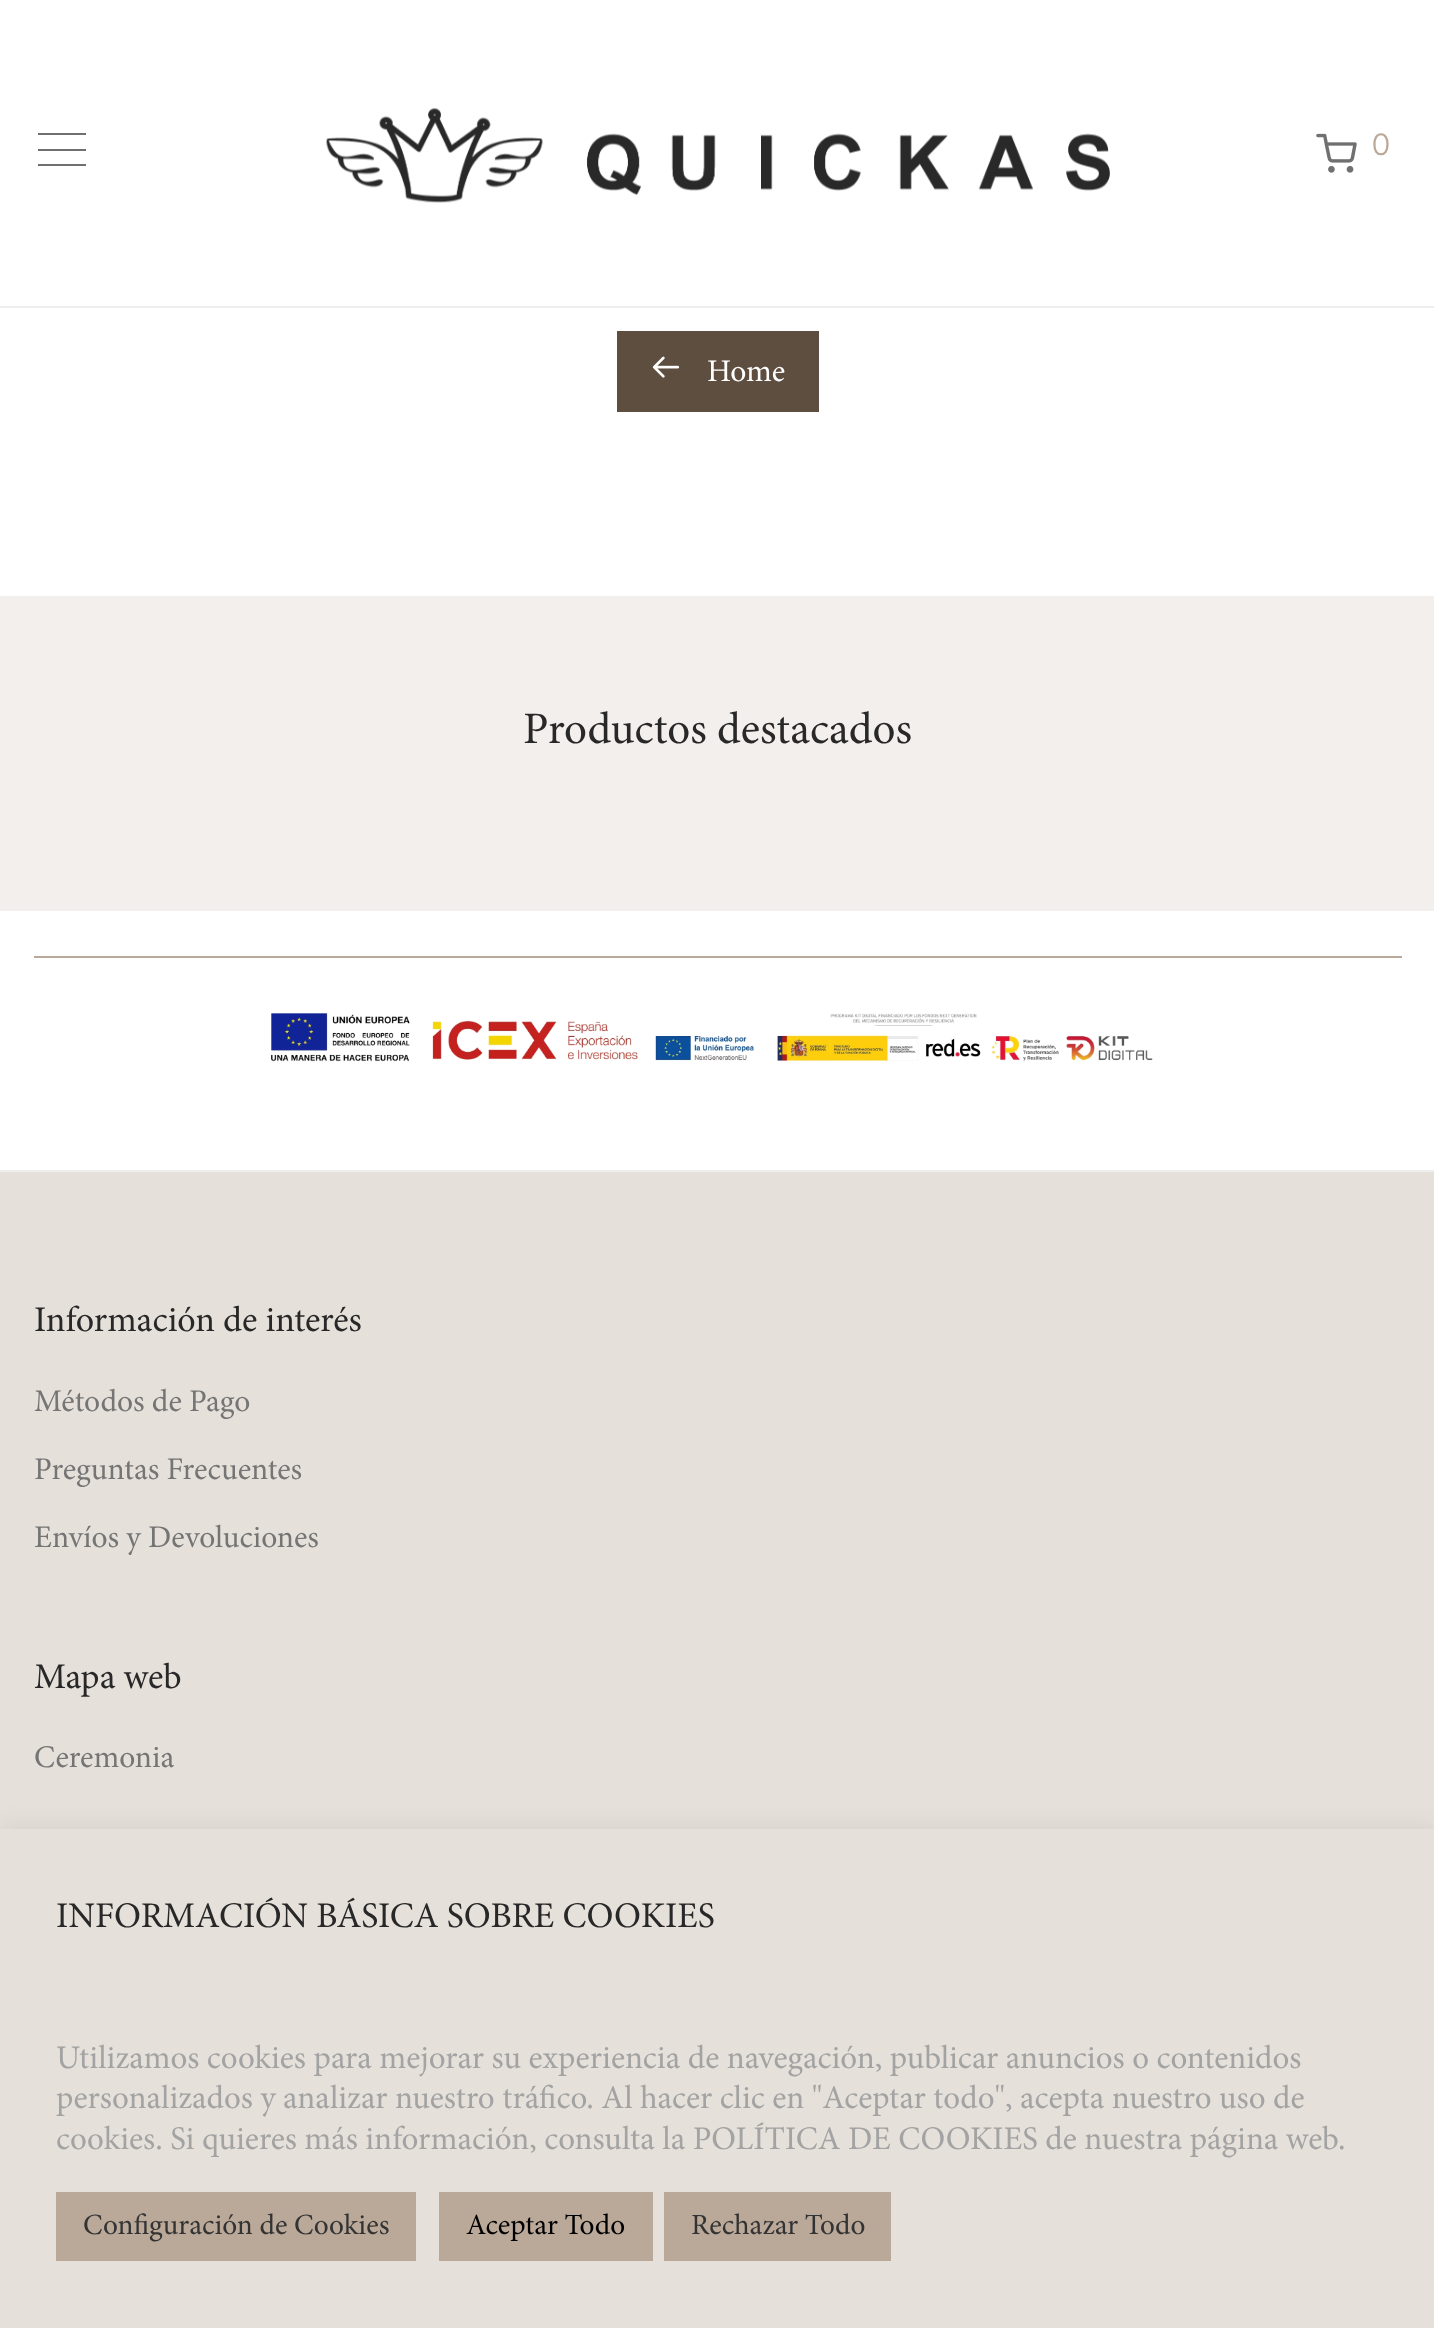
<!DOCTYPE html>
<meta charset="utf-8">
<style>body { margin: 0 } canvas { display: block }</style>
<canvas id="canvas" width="1434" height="2328"></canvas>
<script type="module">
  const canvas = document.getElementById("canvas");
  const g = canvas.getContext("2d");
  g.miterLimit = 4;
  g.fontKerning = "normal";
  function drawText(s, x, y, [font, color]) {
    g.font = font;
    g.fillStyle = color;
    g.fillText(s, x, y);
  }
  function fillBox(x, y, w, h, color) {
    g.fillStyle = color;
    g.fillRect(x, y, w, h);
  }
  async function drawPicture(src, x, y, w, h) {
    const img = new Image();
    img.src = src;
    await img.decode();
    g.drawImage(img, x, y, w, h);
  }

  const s1 = ["31.5px Brandon Grotesque", "#BAA899"];
  const s2 = ["31.5px Minion", "#FFFFFF"];
  const s3 = ["45px Minion", "#282828"];
  const s4 = ["36px Minion", "#282828"];
  const s5 = ["31.5px Minion", "#757575"];
  const s6 = ["33px Minion", "#A3A3A3"];
  const s7 = ["29.25px Minion", "#333333"];
  const s8 = ["29.25px Minion", "#000000"];

  fillBox(0, 0, 1434, 2328, "#FFFFFF");
  fillBox(0, 596, 1434, 315, "#F3EFED");
  fillBox(0, 306, 1434, 2, "#EEEEEE");
  await drawPicture("pic1.png", 326, 107, 784, 96);
  fillBox(38, 133, 48, 2, "#707070");
  fillBox(38, 149, 48, 2, "#707070");
  fillBox(38, 164, 48, 2, "#707070");
  await drawPicture("pic2.png", 1316, 133, 41, 40);
  g.letterSpacing = "2px";
  drawText("0", 1371, 155, s1);
  fillBox(617, 331, 202, 81, "#5E4E40");
  await drawPicture("pic3.png", 652, 356, 28, 22);
  g.letterSpacing = "0px";
  drawText("Home", 707, 381, s2);
  drawText("Productos destacados", 523, 743, s3);
  fillBox(34, 956, 1368, 2, "#BAA899");
  await drawPicture("pic4.png", 271, 1013, 882, 49);
  fillBox(0, 1172, 1434, 657, "#E6E0DA");
  fillBox(0, 1170, 1434, 2, "#EEEEEE");
  drawText("Información de interés", 34, 1331, s4);
  drawText("Métodos de Pago", 34, 1411, s5);
  drawText("Preguntas Frecuentes", 34, 1479, s5);
  drawText("Envíos y Devoluciones", 34, 1547, s5);
  drawText("Mapa web", 34, 1688, s4);
  drawText("Ceremonia", 34, 1767, s5);
  g.fillStyle = "rgba(172, 171, 171, 0.3)";
  g.filter = "blur(11px)";
  g.beginPath();
  g.rect(0, 1827, 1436, 500);
  g.fill();
  g.filter = "none";
  fillBox(0, 1829, 1434, 499, "#E6E0DA");
  drawText("INFORMACIÓN BÁSICA SOBRE COOKIES", 56, 1927, s4);
  drawText("Utilizamos cookies para mejorar su experiencia de navegación, publicar anuncios o contenidos", 56, 2068, s6);
  drawText("personalizados y analizar nuestro tráfico. Al hacer clic en \"Aceptar todo\", acepta nuestro uso de", 56, 2108, s6);
  drawText("cookies. Si quieres más información, consulta la POLÍTICA DE COOKIES de nuestra página web.", 56, 2149, s6);
  fillBox(56, 2192, 360, 69, "#BAA899");
  drawText("Configuración de Cookies", 83, 2234, s7);
  fillBox(439, 2192, 214, 69, "#BAA899");
  drawText("Aceptar Todo", 466, 2234, s8);
  fillBox(664, 2192, 227, 69, "#BAA899");
  drawText("Rechazar Todo", 691, 2234, s7);
</script>
